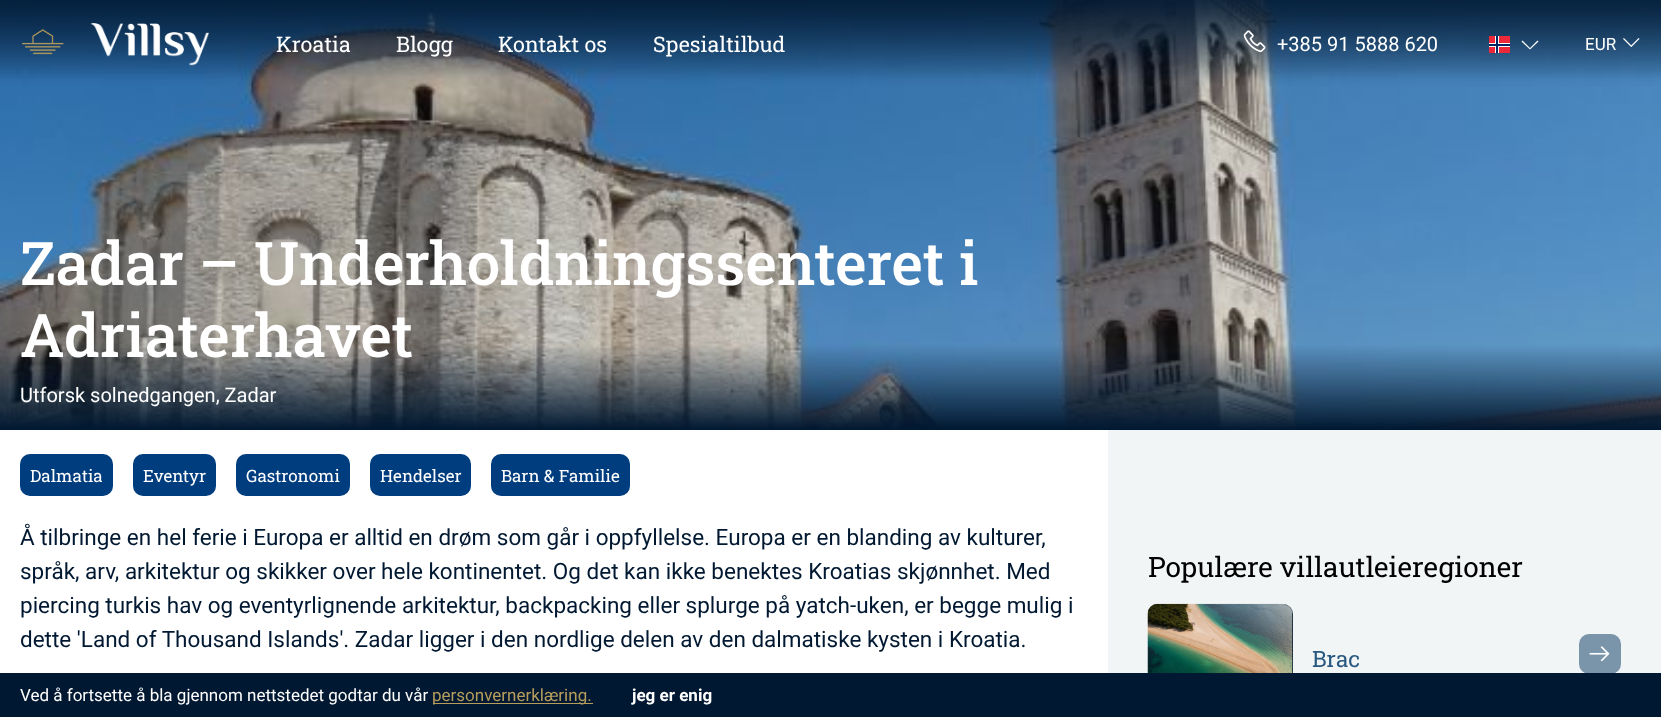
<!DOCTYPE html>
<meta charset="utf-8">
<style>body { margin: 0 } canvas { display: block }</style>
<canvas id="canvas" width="1661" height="717"></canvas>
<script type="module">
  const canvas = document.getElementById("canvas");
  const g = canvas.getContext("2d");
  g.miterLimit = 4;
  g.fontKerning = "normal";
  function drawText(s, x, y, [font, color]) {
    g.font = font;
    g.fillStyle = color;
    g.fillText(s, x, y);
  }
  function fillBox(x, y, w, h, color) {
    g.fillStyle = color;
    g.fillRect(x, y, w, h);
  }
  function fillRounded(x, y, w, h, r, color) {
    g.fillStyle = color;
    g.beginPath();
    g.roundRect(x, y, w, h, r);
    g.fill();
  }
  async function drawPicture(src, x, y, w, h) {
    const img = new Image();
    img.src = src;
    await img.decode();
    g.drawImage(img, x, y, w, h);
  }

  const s1 = ["21.5px Roboto Slab", "#FFFFFF"];
  const s2 = ["20px Roboto", "#FFFFFF"];
  const s3 = ["17px Roboto", "#FFFFFF"];
  const s4 = ["500 60px Roboto Slab", "#FFFFFF"];
  const s5 = ["17px Roboto Slab", "#FFFFFF"];
  const s6 = ["22.5px Roboto", "#001831"];
  const s7 = ["28px Roboto Slab", "#000000"];
  const s8 = ["22.5px Roboto Slab", "#28587F"];
  const s9 = ["17px Roboto", "#B69D5C"];
  const s10 = ["bold 17px Roboto", "#FFFFFF"];

  fillBox(0, 0, 1661, 717, "#F2F5F6");
  await drawPicture("pic6.png", 0, 0, 1661, 430);
  await drawPicture("pic1.png", 22, 29, 42, 26);
  await drawPicture("pic2.png", 90, 22, 120, 44);
  drawText("Kroatia", 276, 52, s1);
  drawText("Blogg", 396, 52, s1);
  drawText("Kontakt os", 498, 52, s1);
  drawText("Spesialtilbud", 653, 52, s1);
  await drawPicture("pic3.png", 1243, 30, 23, 23);
  drawText("+385 91 5888 620", 1277, 51, s2);
  await drawPicture("pic4.png", 1489, 36, 21, 17);
  g.beginPath();
  g.moveTo(1522.5, 40.5);
  g.lineTo(1521.5, 41.5);
  g.lineTo(1530, 49.5);
  g.lineTo(1538.5, 41.5);
  g.lineTo(1537.5, 40.5);
  g.lineTo(1530, 48);
  g.closePath();
  g.fill();
  drawText("EUR", 1585, 50, s3);
  await drawPicture("pic5.png", 1623, 38, 17, 9);
  drawText("Zadar – Underholdningssenteret i", 20, 285, s4);
  drawText("Adriaterhavet", 20, 357, s4);
  drawText("Utforsk solnedgangen, Zadar", 20, 402, s2);
  fillBox(0, 430, 1108, 243, "#FFFFFF");
  fillRounded(20, 454, 93, 42, 10, "#003D7E");
  drawText("Dalmatia", 30, 482, s5);
  fillRounded(133, 454, 83, 42, 10, "#003D7E");
  drawText("Eventyr", 143, 482, s5);
  fillRounded(236, 454, 114, 42, 10, "#003D7E");
  drawText("Gastronomi", 246, 482, s5);
  fillRounded(370, 454, 101, 42, 10, "#003D7E");
  drawText("Hendelser", 380, 482, s5);
  fillRounded(491, 454, 139, 42, 10, "#003D7E");
  drawText("Barn & Familie", 501, 482, s5);
  drawText("Å tilbringe en hel ferie i Europa er alltid en drøm som går i oppfyllelse. Europa er en blanding av kulturer,", 20, 545, s6);
  drawText("språk, arv, arkitektur og skikker over hele kontinentet. Og det kan ikke benektes Kroatias skjønnhet. Med", 20, 579, s6);
  drawText("piercing turkis hav og eventyrlignende arkitektur, backpacking eller splurge på yatch-uken, er begge mulig i", 20, 613, s6);
  drawText("dette 'Land of Thousand Islands'. Zadar ligger i den nordlige delen av den dalmatiske kysten i Kroatia.", 20, 647, s6);
  drawText("Populære villautleieregioner", 1148, 577, s7);
  fillRounded(1148, 604, 145, 100, 10, "#001831");
  await drawPicture("pic7.png", 1147, 603, 146, 70);
  drawText("Brac", 1312, 667, s8);
  fillRounded(1579, 634, 42, 40, 10, "#7A94AA");
  await drawPicture("pic8.png", 1589, 646, 21, 16);
  fillBox(0, 673, 1661, 44, "#001831");
  drawText("Ved å fortsette å bla gjennom nettstedet godtar du vår", 20, 701, s3);
  fillBox(433, 703, 160, 1, "#B69D5C");
  drawText("personvernerklæring.", 432, 701, s9);
  drawText("jeg er enig", 632, 701, s10);
</script>
